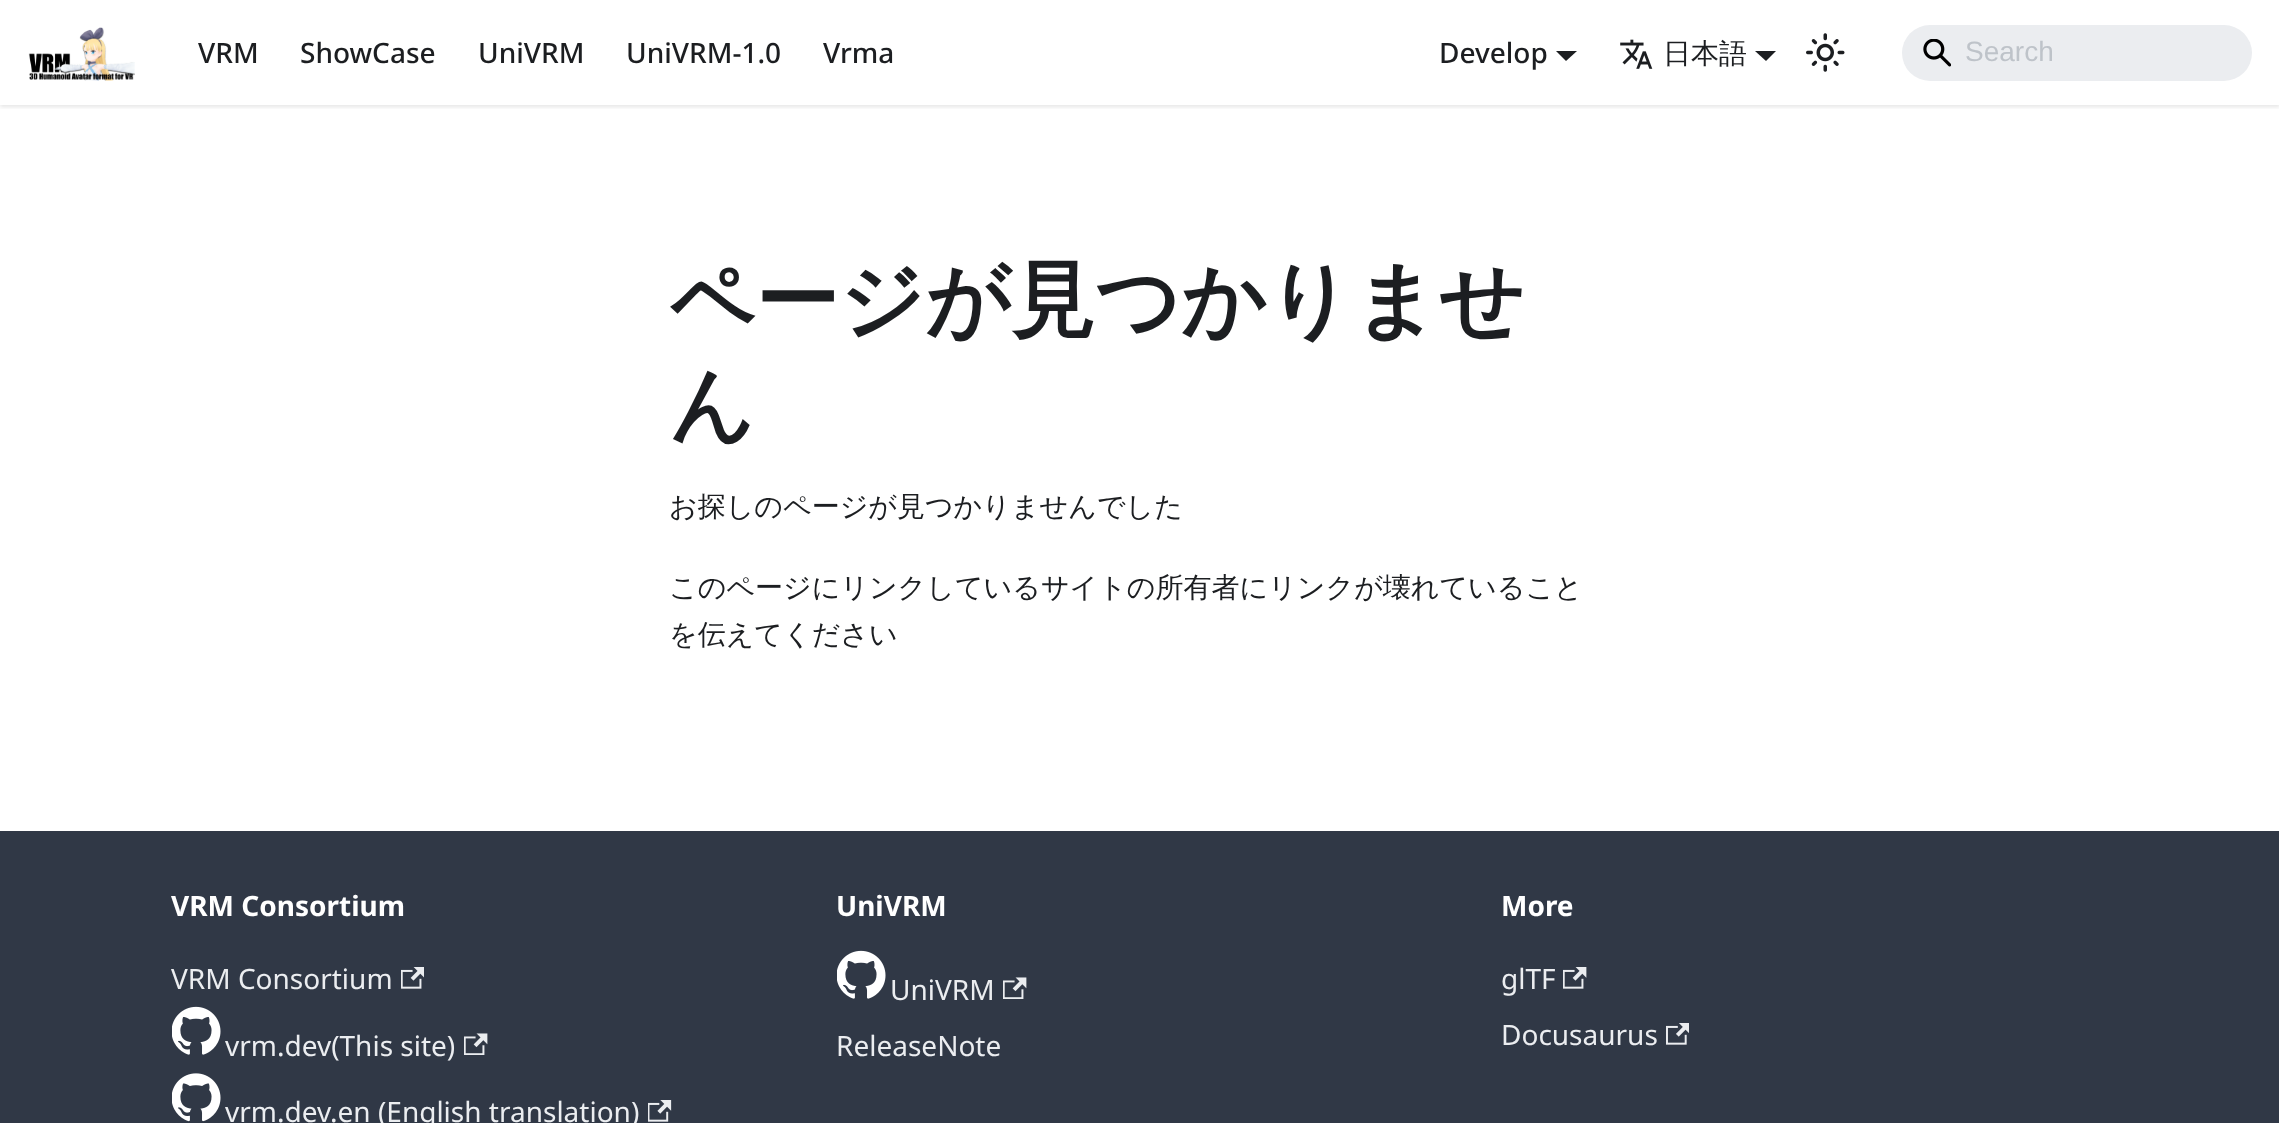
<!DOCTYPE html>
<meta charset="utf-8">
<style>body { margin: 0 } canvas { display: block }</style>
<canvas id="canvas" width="2279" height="1123"></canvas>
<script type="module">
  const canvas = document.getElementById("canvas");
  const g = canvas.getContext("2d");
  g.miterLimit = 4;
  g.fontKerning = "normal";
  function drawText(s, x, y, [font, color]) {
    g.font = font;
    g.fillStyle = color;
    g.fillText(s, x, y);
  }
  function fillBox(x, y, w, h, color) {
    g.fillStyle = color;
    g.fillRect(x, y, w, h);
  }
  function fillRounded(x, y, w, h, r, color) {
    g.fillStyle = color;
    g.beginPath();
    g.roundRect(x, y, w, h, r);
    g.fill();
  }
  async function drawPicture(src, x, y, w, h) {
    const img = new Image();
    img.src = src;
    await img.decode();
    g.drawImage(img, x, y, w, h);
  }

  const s1 = ["500 28px Noto Sans", "#1C1E21"];
  const s2 = ["500 28px WenQuanYi Zen Hei", "#1C1E21"];
  const s3 = ["28px Liberation Sans", "#BEC3C9"];
  const s4 = ["bold 84px WenQuanYi Zen Hei", "#1C1E21"];
  const s5 = ["bold 28px Noto Sans", "#FFFFFF"];
  const s6 = ["28px Noto Sans", "#EBEDF0"];

  fillBox(0, 0, 2279, 1123, "#FFFFFF");
  g.save();
  g.beginPath();
  g.rect(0, 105, 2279, 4);
  g.clip();
  g.fillStyle = "rgba(0, 0, 0, 0.1)";
  g.filter = "blur(2px)";
  g.beginPath();
  g.rect(0, 2, 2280, 105);
  g.fill();
  g.filter = "none";
  g.restore();
  await drawPicture("pic1.png", 28, 27, 107, 54);
  drawText("VRM", 198, 63, s1);
  drawText("ShowCase", 300, 63, s1);
  drawText("UniVRM", 478, 63, s1);
  drawText("UniVRM-1.0", 626, 63, s1);
  drawText("Vrma", 823, 63, s1);
  drawText("Develop", 1439, 63, s1);
  g.beginPath();
  g.moveTo(1556, 51);
  g.lineTo(1577, 51);
  g.lineTo(1566, 61);
  g.closePath();
  g.fill();
  await drawPicture("pic2.png", 1620, 39, 33, 30);
  drawText("日本語", 1663, 63, s2);
  g.beginPath();
  g.moveTo(1755, 51);
  g.lineTo(1776, 51);
  g.lineTo(1766, 61);
  g.closePath();
  g.fill();
  await drawPicture("pic3.png", 1806, 33, 39, 39);
  fillRounded(1902, 25, 350, 56, 28, "#EBEDF0");
  await drawPicture("pic4.png", 1923, 39, 28, 28);
  drawText("Search", 1965, 61, s3);
  drawText("ページが見つかりませ", 669, 329, s4);
  drawText("ん", 669, 434, s4);
  drawText("お探しのページが見つかりませんでした", 669, 516, s2);
  drawText("このページにリンクしているサイトの所有者にリンクが壊れていること", 669, 597, s2);
  drawText("を伝えてください", 669, 644, s2);
  fillBox(0, 831, 2279, 292, "#303846");
  drawText("VRM Consortium", 171, 916, s5);
  drawText("VRM Consortium", 171, 989, s6);
  await drawPicture("pic5.png", 401, 967, 23, 22);
  await drawPicture("pic6.png", 172, 1006, 49, 49);
  drawText("vrm.dev(This site)", 225, 1056, s6);
  await drawPicture("pic7.png", 464, 1033, 24, 22);
  await drawPicture("pic8.png", 172, 1073, 49, 49);
  drawText("vrm.dev.en (English translation)", 225, 1122, s6);
  await drawPicture("pic9.png", 648, 1100, 24, 22);
  drawText("UniVRM", 836, 916, s5);
  await drawPicture("pic6.png", 837, 950, 49, 49);
  drawText("UniVRM", 890, 1000, s6);
  await drawPicture("pic7.png", 1003, 977, 24, 22);
  drawText("ReleaseNote", 836, 1056, s6);
  drawText("More", 1501, 916, s5);
  drawText("glTF", 1501, 989, s6);
  await drawPicture("pic10.png", 1563, 967, 24, 22);
  drawText("Docusaurus", 1501, 1045, s6);
  await drawPicture("pic11.png", 1666, 1023, 23, 22);
</script>
